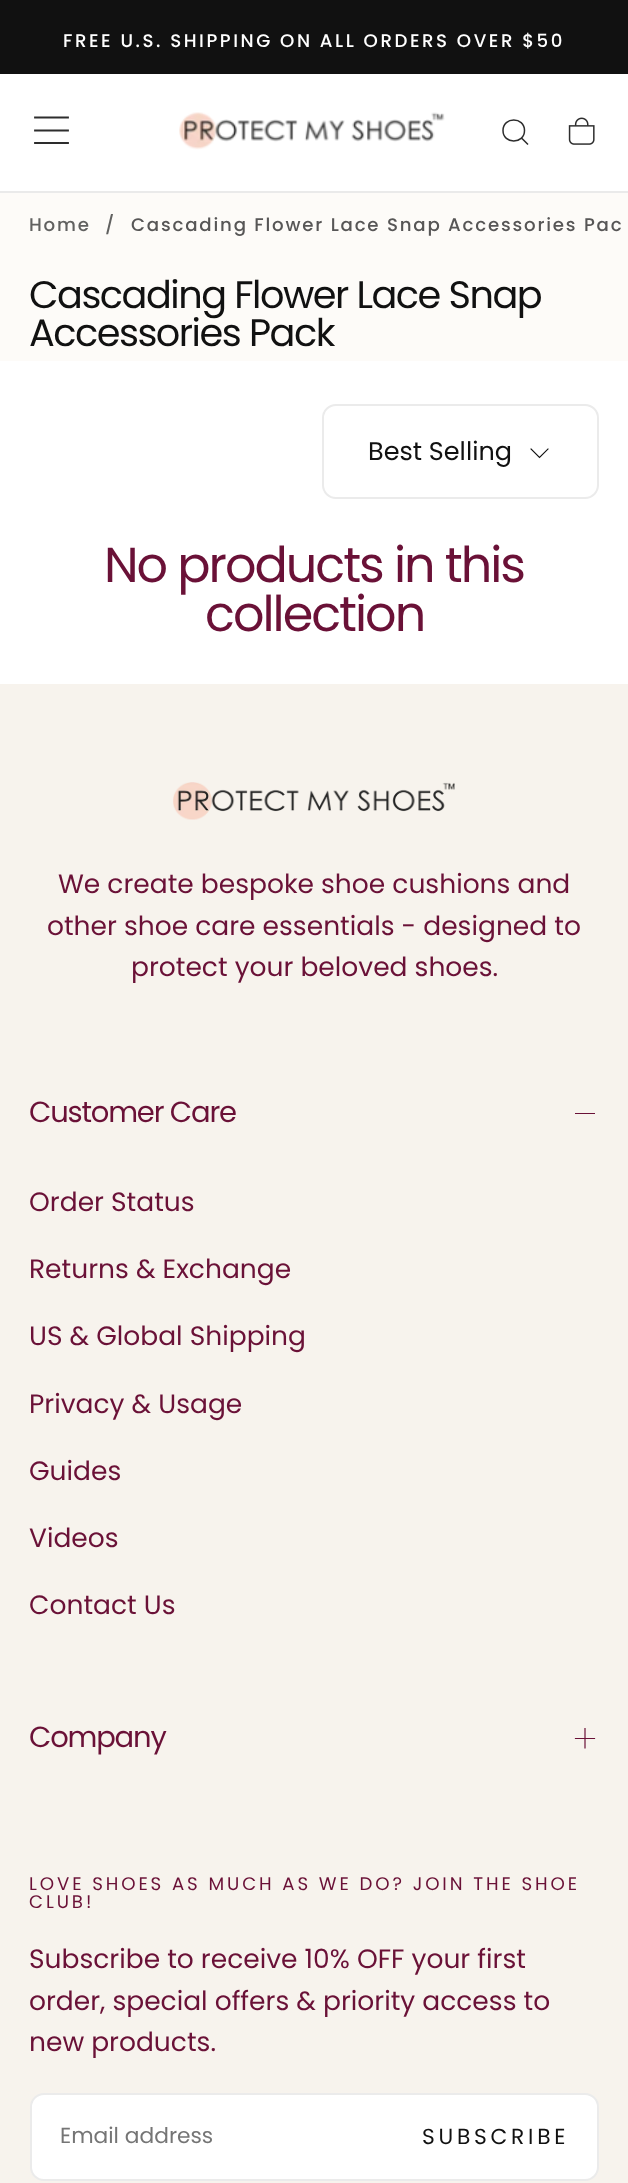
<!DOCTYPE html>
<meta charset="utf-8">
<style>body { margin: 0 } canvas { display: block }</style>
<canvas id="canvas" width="628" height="2183"></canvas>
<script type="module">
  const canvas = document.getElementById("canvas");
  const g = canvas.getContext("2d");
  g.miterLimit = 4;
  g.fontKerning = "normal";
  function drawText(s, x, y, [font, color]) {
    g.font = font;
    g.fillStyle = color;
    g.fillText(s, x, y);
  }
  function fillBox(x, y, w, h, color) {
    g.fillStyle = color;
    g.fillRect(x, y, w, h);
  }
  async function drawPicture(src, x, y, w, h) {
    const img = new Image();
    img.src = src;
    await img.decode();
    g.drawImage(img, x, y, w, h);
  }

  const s1 = ["500 18.2px Poppins", "#FFFFFF"];
  const s2 = ["500 18.2px Poppins", "#616160"];
  const s3 = ["500 18.2px Poppins", "#575656"];
  const s4 = ["38.25px Poppins", "#111111"];
  const s5 = ["25.5px Poppins", "#111111"];
  const s6 = ["49.25px Poppins", "#6A1137"];
  const s7 = ["26.5px Poppins", "#6A1137"];
  const s8 = ["29px Poppins", "#6A1137"];
  const s9 = ["18.2px Poppins", "#6A1137"];
  const s10 = ["21.75px Poppins", "#757575"];
  const s11 = ["21.75px Poppins", "#111111"];

  fillBox(0, 0, 628, 2183, "#FFFFFF");
  fillBox(0, 0, 628, 74, "#111111");
  g.letterSpacing = "2.55px";
  drawText("FREE U.S. SHIPPING ON ALL ORDERS OVER $50", 63, 47, s1);
  fillBox(0, 191, 628, 2, "#EAEAEA");
  g.beginPath();
  g.moveTo(35, 130.5);
  g.lineTo(68, 130.5);
  g.moveTo(35, 117.5);
  g.lineTo(68, 117.5);
  g.moveTo(35, 143);
  g.lineTo(68, 143);
  g.strokeStyle = "#2D2D2D";
  g.lineWidth = 1.8;
  g.lineCap = "square";
  g.stroke();
  await drawPicture("pic1.png", 179, 112, 266, 38);
  g.beginPath();
  g.moveTo(527.5, 144);
  g.lineTo(521.5, 138);
  g.moveTo(524.5, 130.5);
  g.bezierCurveTo(524.5, 144.5, 503, 144.5, 503, 130.5);
  g.bezierCurveTo(503, 116.5, 524.5, 116.5, 524.5, 130.5);
  g.closePath();
  g.lineWidth = 1.5;
  g.stroke();
  await drawPicture("pic2.png", 568, 117, 27, 28);
  fillBox(0, 193, 628, 168, "#FDFBF8");
  g.letterSpacing = "1.8px";
  drawText("Home", 29, 231, s2);
  g.save();
  g.beginPath();
  g.rect(30, 214, 598, 22);
  g.clip();
  drawText("/", 105, 231, s2);
  g.restore();
  drawText("Cascading Flower Lace Snap Accessories Pac", 131, 231, s3);
  g.letterSpacing = "-1.5px";
  drawText("Cascading Flower Lace Snap", 29, 308, s4);
  drawText("Accessories Pack", 29, 346, s4);
  g.beginPath();
  g.roundRect(323, 405, 275, 93, 13);
  g.strokeStyle = "#EBEBEB";
  g.lineWidth = 2;
  g.stroke();
  g.letterSpacing = "0px";
  drawText("Best Selling", 368, 460, s5);
  g.beginPath();
  g.moveTo(531, 449);
  g.lineTo(539.5, 457.5);
  g.lineTo(548, 449);
  g.strokeStyle = "#111111";
  g.lineWidth = 1.1;
  g.stroke();
  g.letterSpacing = "-2px";
  drawText("No products in this", 104, 582, s6);
  drawText("collection", 205, 631, s6);
  fillBox(0, 684, 628, 1499, "#F7F3ED");
  await drawPicture("pic3.png", 173, 782, 282, 38);
  g.letterSpacing = "0px";
  drawText("We create bespoke shoe cushions and", 58, 893, s7);
  drawText("other shoe care essentials - designed to", 47, 935, s7);
  drawText("protect your beloved shoes.", 131, 976, s7);
  g.letterSpacing = "-1.2px";
  drawText("Customer Care", 29, 1122, s8);
  fillBox(575, 1113, 20, 1, "#6A1137");
  g.letterSpacing = "0px";
  drawText("Order Status", 29, 1211, s7);
  drawText("Returns & Exchange", 29, 1278, s7);
  drawText("US & Global Shipping", 29, 1345, s7);
  drawText("Privacy & Usage", 29, 1413, s7);
  drawText("Guides", 29, 1480, s7);
  drawText("Videos", 29, 1547, s7);
  drawText("Contact Us", 29, 1614, s7);
  g.letterSpacing = "-1.2px";
  drawText("Company", 29, 1747, s8);
  g.beginPath();
  g.moveTo(585, 1728.5);
  g.lineTo(585, 1738.5);
  g.moveTo(585, 1738.5);
  g.lineTo(585, 1748);
  g.moveTo(585, 1738.5);
  g.lineTo(575.5, 1738.5);
  g.moveTo(585, 1738.5);
  g.lineTo(594.5, 1738.5);
  g.strokeStyle = "#6A1137";
  g.lineWidth = 1.2;
  g.stroke();
  g.letterSpacing = "2.9px";
  drawText("LOVE SHOES AS MUCH AS WE DO? JOIN THE SHOE", 29, 1890, s9);
  drawText("CLUB!", 29, 1908, s9);
  g.letterSpacing = "0px";
  drawText("Subscribe to receive 10% OFF your first", 29, 1968, s7);
  drawText("order, special offers & priority access to", 29, 2010, s7);
  drawText("new products.", 29, 2051, s7);
  g.fillStyle = "#FFFFFF";
  g.beginPath();
  g.roundRect(31, 2094, 567, 86, 13);
  g.fill();
  g.strokeStyle = "#EBEBEB";
  g.lineWidth = 2;
  g.stroke();
  drawText("Email address", 60, 2143, s10);
  g.letterSpacing = "3.75px";
  drawText("SUBSCRIBE", 422, 2144, s11);
</script>
